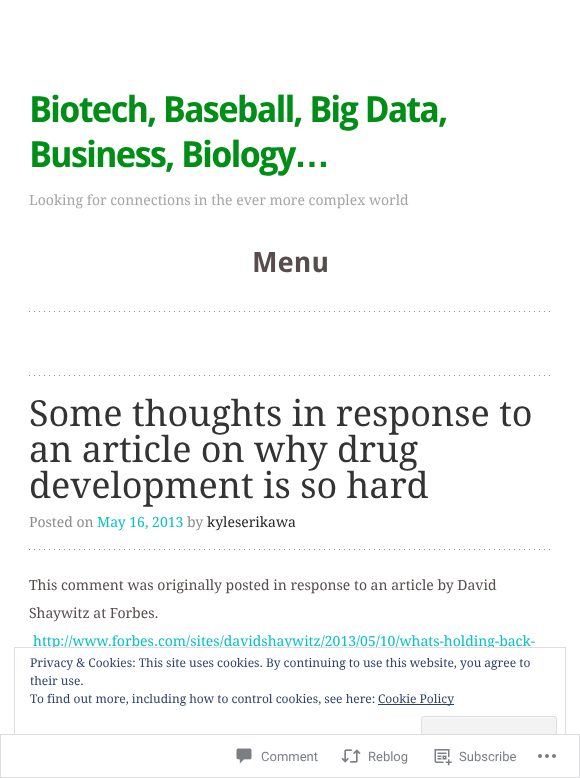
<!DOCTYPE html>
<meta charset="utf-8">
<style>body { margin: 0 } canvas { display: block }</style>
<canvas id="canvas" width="580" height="778"></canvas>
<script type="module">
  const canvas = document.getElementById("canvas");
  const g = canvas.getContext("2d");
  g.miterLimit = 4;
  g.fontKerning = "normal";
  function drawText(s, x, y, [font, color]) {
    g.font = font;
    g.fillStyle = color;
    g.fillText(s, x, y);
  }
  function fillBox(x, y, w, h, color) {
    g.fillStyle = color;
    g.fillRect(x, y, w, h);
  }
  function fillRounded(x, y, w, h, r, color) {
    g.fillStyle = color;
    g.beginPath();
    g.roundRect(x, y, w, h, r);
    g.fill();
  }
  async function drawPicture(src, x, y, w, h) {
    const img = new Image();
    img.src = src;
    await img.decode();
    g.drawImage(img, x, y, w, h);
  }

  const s1 = ["bold 36px Droid Sans", "#008E17"];
  const s2 = ["bold 36px Liberation Sans", "#008E17"];
  const s3 = ["14px Droid Serif", "#A5A5A5"];
  const s4 = ["bold 28px Droid Sans", "#574D4D"];
  const s5 = ["36px Droid Serif", "#333333"];
  const s6 = ["14px Droid Serif", "#8C8C8C"];
  const s7 = ["14px Droid Serif", "#08C1C3"];
  const s8 = ["14px Droid Serif", "#262626"];
  const s9 = ["14px Droid Serif", "#574D4D"];
  const s10 = ["12px Droid Serif", "#2E4467"];
  const s11 = ["13px Roboto", "#7B7F85"];

  fillBox(0, 0, 580, 778, "#FFFFFF");
  await drawPicture("pic1.png", 29, 311, 521, 1);
  g.letterSpacing = "-2px";
  drawText("Biotech, Baseball, Big Data,", 29, 122, s1);
  drawText("Business, Biology", 29, 167, s1);
  drawText("…", 294, 167, s2);
  g.letterSpacing = "0px";
  drawText("Looking for connections in the ever more complex world", 29, 205, s3);
  drawText("Menu", 252, 272, s4);
  await drawPicture("pic1.png", 29, 375, 521, 1);
  drawText("Some thoughts in response to", 29, 426, s5);
  drawText("an article on why drug", 29, 462, s5);
  drawText("development is so hard", 29, 498, s5);
  await drawPicture("pic1.png", 29, 549, 521, 1);
  drawText("Posted on", 29, 527, s6);
  drawText("May 16, 2013", 97, 527, s7);
  drawText("by", 187, 527, s6);
  drawText("kyleserikawa", 207, 527, s8);
  drawText("This comment was originally posted in response to an article by David", 29, 590, s9);
  drawText("Shaywitz at Forbes.", 29, 618, s9);
  drawText("http://www.forbes.com/sites/davidshaywitz/2013/05/10/whats-holding-back-", 33, 646, s7);
  fillBox(51, 648, 443, 2, "#FFFFFF");
  g.strokeStyle = "#DEDEDE";
  g.strokeRect(14.5, 647.5, 551, 116);
  drawText("Privacy & Cookies: This site uses cookies. By continuing to use this website, you agree to", 30, 667, s10);
  drawText("their use.", 30, 685, s10);
  drawText("To find out more, including how to control cookies, see here:", 30, 703, s10);
  fillBox(378, 704, 76, 1, "#2E4467");
  drawText("Cookie Policy", 378, 703, s10);
  fillRounded(421, 716, 136, 39, 3, "#F3F3F3");
  g.fillStyle = "#F9F9F9";
  g.beginPath();
  g.moveTo(424, 718);
  g.lineTo(554, 718);
  g.bezierCurveTo(555, 718, 556, 719, 556, 720);
  g.bezierCurveTo(556, 719, 556, 717, 554, 717);
  g.lineTo(424, 717);
  g.bezierCurveTo(422, 717, 422, 719, 422, 720);
  g.bezierCurveTo(422, 719, 423, 718, 424, 718);
  g.closePath();
  g.fill();
  g.beginPath();
  g.roundRect(421.5, 716.5, 135, 38, 2.5);
  g.stroke();
  fillBox(14, 734, 552, 30, "rgba(255, 255, 255, 0.98)");
  g.strokeStyle = "rgba(220, 220, 222, 0.98)";
  g.strokeRect(0.5, 734.5, 579, 43);
  await drawPicture("pic2.png", 236, 748, 16, 16);
  drawText("Comment", 261, 761, s11);
  await drawPicture("pic3.png", 341, 749, 20, 14);
  drawText("Reblog", 368, 761, s11);
  await drawPicture("pic4.png", 434, 749, 18, 17);
  drawText("Subscribe", 459, 761, s11);
  await drawPicture("pic5.png", 538, 754, 18, 4);
</script>
